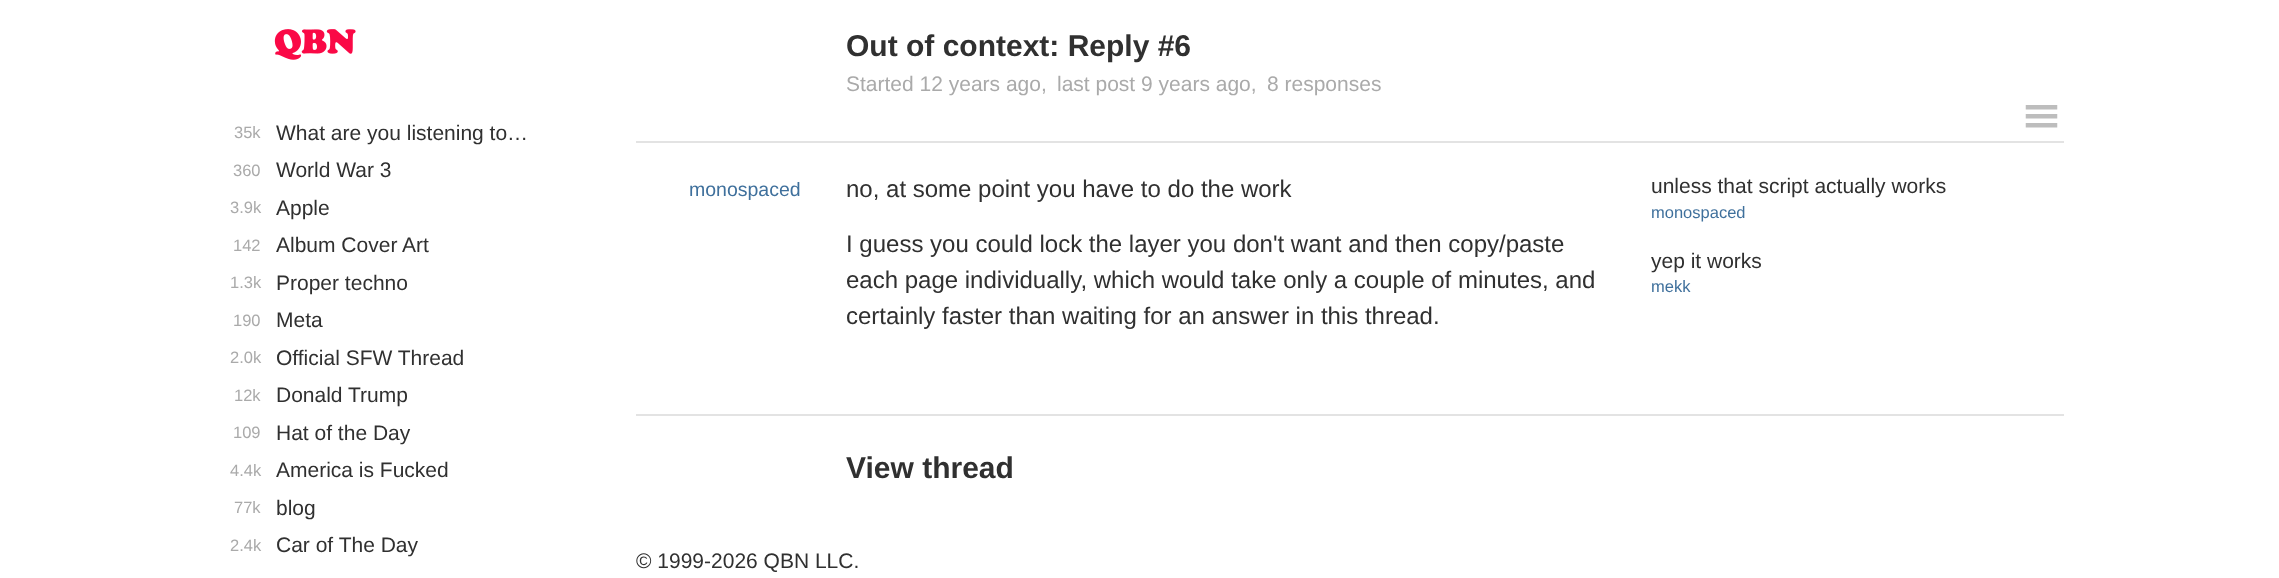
<!DOCTYPE html>
<meta charset="utf-8">
<style>body { margin: 0 } canvas { display: block }</style>
<canvas id="canvas" width="2279" height="578"></canvas>
<script type="module">
  const canvas = document.getElementById("canvas");
  const g = canvas.getContext("2d");
  g.miterLimit = 4;
  g.fontKerning = "normal";
  function drawText(s, x, y, [font, color]) {
    g.font = font;
    g.fillStyle = color;
    g.fillText(s, x, y);
  }
  function fillBox(x, y, w, h, color) {
    g.fillStyle = color;
    g.fillRect(x, y, w, h);
  }
  async function drawPicture(src, x, y, w, h) {
    const img = new Image();
    img.src = src;
    await img.decode();
    g.drawImage(img, x, y, w, h);
  }

  const s1 = ["16.5px Liberation Sans", "#AAAAAA"];
  const s2 = ["21px Liberation Sans", "#303030"];
  const s3 = ["bold 30px Liberation Sans", "#303030"];
  const s4 = ["21px Liberation Sans", "#AAAAAA"];
  const s5 = ["19.5px Liberation Sans", "#3F709C"];
  const s6 = ["24px Liberation Sans", "#303030"];
  const s7 = ["16.5px Liberation Sans", "#3F709C"];

  fillBox(0, 0, 2279, 578, "#FFFFFF");
  await drawPicture("pic1.png", 274, 29, 82, 31);
  drawText("35k", 234, 138, s1);
  drawText("What are you listening to…", 276, 140, s2);
  drawText("360", 233, 176, s1);
  drawText("World War 3", 276, 177, s2);
  drawText("3.9k", 230, 213, s1);
  drawText("Apple", 276, 215, s2);
  drawText("142", 233, 251, s1);
  drawText("Album Cover Art", 276, 252, s2);
  drawText("1.3k", 230, 288, s1);
  drawText("Proper techno", 276, 290, s2);
  drawText("190", 233, 326, s1);
  drawText("Meta", 276, 327, s2);
  drawText("2.0k", 230, 363, s1);
  drawText("Official SFW Thread", 276, 365, s2);
  drawText("12k", 234, 401, s1);
  drawText("Donald Trump", 276, 402, s2);
  drawText("109", 233, 438, s1);
  drawText("Hat of the Day", 276, 440, s2);
  drawText("4.4k", 230, 476, s1);
  drawText("America is Fucked", 276, 477, s2);
  drawText("77k", 234, 513, s1);
  drawText("blog", 276, 515, s2);
  drawText("2.4k", 230, 551, s1);
  drawText("Car of The Day", 276, 552, s2);
  drawText("Out of context: Reply #6", 846, 56, s3);
  drawText("Started 12 years ago,", 846, 91, s4);
  drawText("last post 9 years ago,", 1057, 91, s4);
  drawText("8 responses", 1267, 91, s4);
  fillBox(636, 414, 1428, 2, "#E3E3E3");
  fillBox(636, 141, 1428, 2, "#E3E3E3");
  drawText("monospaced", 689, 196, s5);
  drawText("no, at some point you have to do the work", 846, 197, s6);
  drawText("I guess you could lock the layer you don't want and then copy/paste", 846, 252, s6);
  drawText("each page individually, which would take only a couple of minutes, and", 846, 288, s6);
  drawText("certainly faster than waiting for an answer in this thread.", 846, 324, s6);
  drawText("unless that script actually works", 1651, 193, s2);
  drawText("monospaced", 1651, 218, s7);
  drawText("yep it works", 1651, 268, s2);
  drawText("mekk", 1651, 292, s7);
  drawText("View thread", 846, 478, s3);
  await drawPicture("pic2.png", 2025, 105, 33, 23);
  drawText("© 1999-2026 QBN LLC.", 636, 568, s2);
</script>
